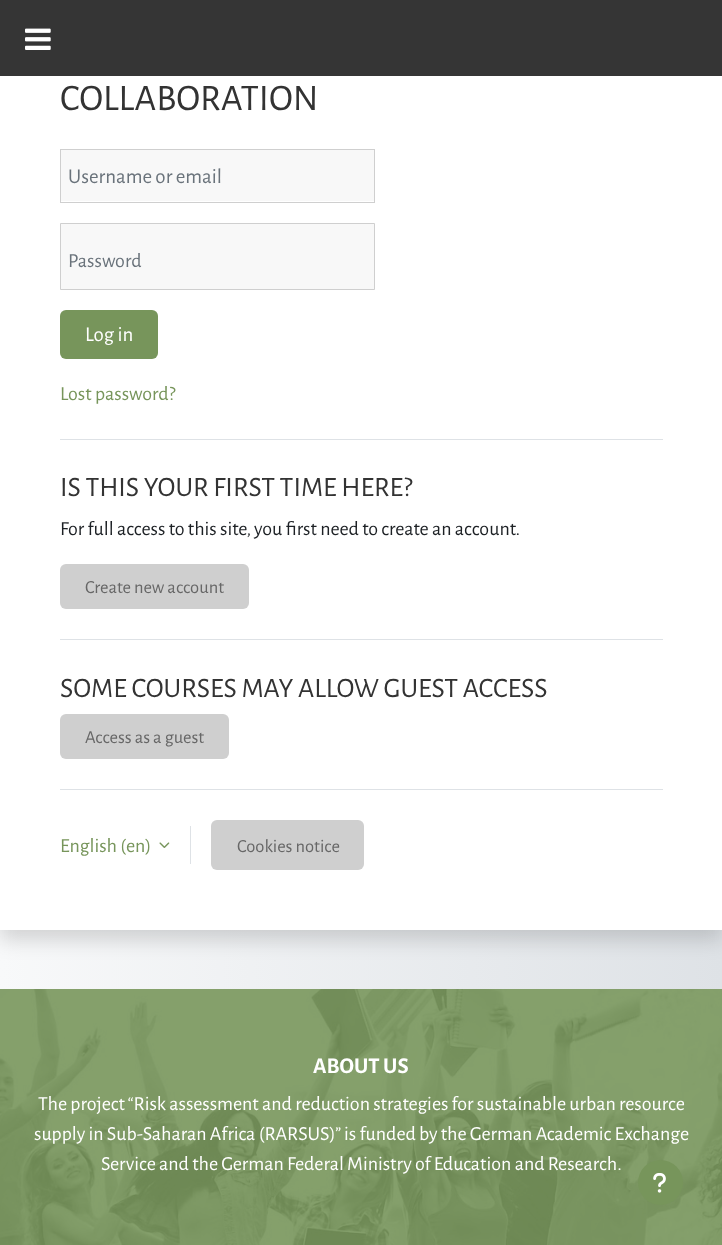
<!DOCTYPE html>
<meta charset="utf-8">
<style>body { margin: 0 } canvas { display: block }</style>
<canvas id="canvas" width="722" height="1245"></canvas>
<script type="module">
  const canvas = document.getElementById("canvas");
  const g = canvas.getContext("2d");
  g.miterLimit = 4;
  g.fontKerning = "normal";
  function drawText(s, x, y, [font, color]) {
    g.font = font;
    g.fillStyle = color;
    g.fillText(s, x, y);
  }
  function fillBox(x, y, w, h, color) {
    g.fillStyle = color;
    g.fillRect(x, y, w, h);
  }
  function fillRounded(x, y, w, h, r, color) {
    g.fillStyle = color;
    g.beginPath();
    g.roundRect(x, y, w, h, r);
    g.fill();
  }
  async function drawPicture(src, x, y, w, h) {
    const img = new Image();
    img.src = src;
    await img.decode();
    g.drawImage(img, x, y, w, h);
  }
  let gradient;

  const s1 = ["37.5px Alegreya Sans", "#333333"];
  const s2 = ["21px Alegreya Sans", "#6A737B"];
  const s3 = ["20px Alegreya Sans", "#6A737B"];
  const s4 = ["21px Alegreya Sans", "#FFFFFF"];
  const s5 = ["20px Alegreya Sans", "#77955B"];
  const s6 = ["28.1px Alegreya Sans", "#333333"];
  const s7 = ["20px Alegreya Sans", "#1D2125"];
  const s8 = ["18.5px Alegreya Sans", "#676767"];
  const s9 = ["bold 22.5px Alegreya Sans", "#FFFFFF"];
  const s10 = ["20px Alegreya Sans", "#FFFFFF"];

  fillBox(0, 0, 722, 1245, "#FFFFFF");
  gradient = g.createLinearGradient(0, 449, 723, 449);
  gradient.addColorStop(0, "#F8F9FA");
  gradient.addColorStop(1, "#DEE2E6");
  g.fillStyle = gradient;
  g.fillRect(0, 930, 722, 59);
  g.fillStyle = "rgba(0, 0, 0, 0.15)";
  g.filter = "blur(10px)";
  g.beginPath();
  g.rect(0, -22, 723, 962);
  g.fill();
  g.filter = "none";
  fillBox(0, 0, 722, 76, "#353535");
  await drawPicture("pic1.png", 25, 28, 26, 22);
  fillBox(0, 76, 722, 854, "#FFFFFF");
  drawText("COLLABORATION", 60, 110, s1);
  fillBox(61, 150, 313, 51, "#F8F8F8");
  g.strokeStyle = "#CFCFCF";
  g.strokeRect(60.5, 149.5, 314, 53);
  drawText("Username or email", 68, 183, s2);
  g.fillStyle = "#F8F8F8";
  g.beginPath();
  g.rect(60.5, 223.5, 314, 66);
  g.fill();
  g.stroke();
  drawText("Password", 68, 267, s3);
  fillRounded(60, 310, 98, 49, 6, "#77955B");
  drawText("Log in", 85, 341, s4);
  drawText("Lost password?", 60, 400, s5);
  fillBox(60, 439, 603, 1, "#DEE2E6");
  drawText("IS THIS YOUR FIRST TIME HERE?", 60, 496, s6);
  drawText("For full access to this site, you first need to create an account.", 60, 535, s7);
  fillRounded(60, 564, 189, 45, 6, "#CFCFCF");
  drawText("Create new account", 85, 593, s8);
  fillBox(60, 639, 603, 1, "#DEE2E6");
  drawText("SOME COURSES MAY ALLOW GUEST ACCESS", 60, 697, s6);
  fillRounded(60, 714, 169, 45, 6, "#CFCFCF");
  drawText("Access as a guest", 85, 743, s8);
  fillBox(60, 789, 603, 1, "#DEE2E6");
  drawText("English (en)", 60, 852, s5);
  await drawPicture("pic2.png", 159, 842, 11, 6);
  fillBox(190, 826, 1, 38, "#DEE2E6");
  fillRounded(211, 820, 153, 50, 6, "#CFCFCF");
  drawText("Cookies notice", 237, 852, s8);
  await drawPicture("pic3.png", 0, 989, 722, 256);
  drawText("ABOUT US", 313, 1073, s9);
  drawText("The project “Risk assessment and reduction strategies for sustainable urban resource", 38, 1110, s10);
  drawText("supply in Sub-Saharan Africa (RARSUS)” is funded by the German Academic Exchange", 34, 1140, s10);
  drawText("Service and the German Federal Ministry of Education and Research.", 101, 1170, s10);
  g.fillStyle = "#77955B";
  g.beginPath();
  g.arc(660.5, 1182.5, 22.5, 0, Math.PI * 2);
  g.fill();
  await drawPicture("pic4.png", 653, 1173, 13, 20);
</script>
